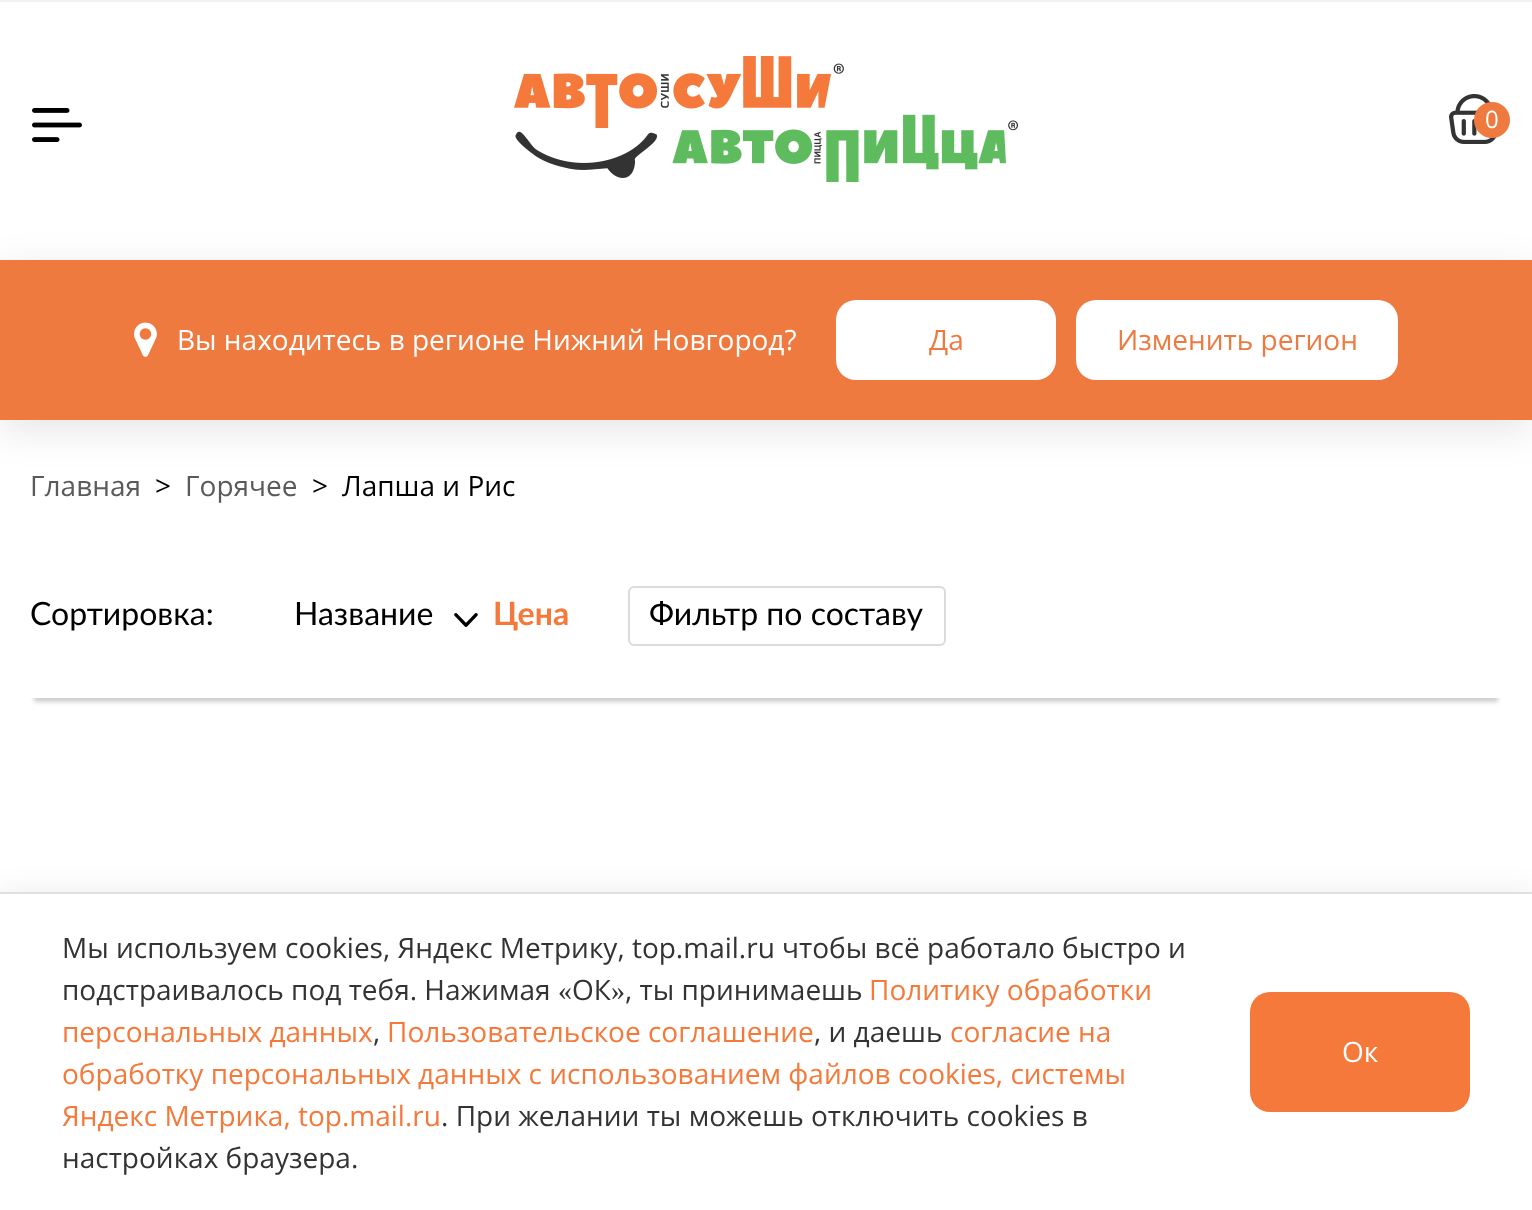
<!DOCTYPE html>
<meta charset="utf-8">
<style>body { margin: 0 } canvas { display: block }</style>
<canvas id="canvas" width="1532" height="1210"></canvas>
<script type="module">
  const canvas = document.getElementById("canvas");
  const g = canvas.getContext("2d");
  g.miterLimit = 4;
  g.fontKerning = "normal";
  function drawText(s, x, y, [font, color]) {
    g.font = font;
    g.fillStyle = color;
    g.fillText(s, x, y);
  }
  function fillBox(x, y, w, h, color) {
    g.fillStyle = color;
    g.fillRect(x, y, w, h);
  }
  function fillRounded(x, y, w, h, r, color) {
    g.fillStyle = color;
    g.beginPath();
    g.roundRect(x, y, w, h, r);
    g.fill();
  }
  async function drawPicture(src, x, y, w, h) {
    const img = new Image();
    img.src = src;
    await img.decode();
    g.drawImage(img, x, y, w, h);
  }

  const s1 = ["24px Open Sans", "#FFFFFF"];
  const s2 = ["28px Open Sans", "#FFFFFF"];
  const s3 = ["28px Open Sans", "#EE7A40"];
  const s4 = ["28px Open Sans", "#5A5A5A"];
  const s5 = ["28px Open Sans", "#000000"];
  const s6 = ["32px Lato", "#000000"];
  const s7 = ["bold 32px Lato", "#F4793B"];
  const s8 = ["28px Open Sans", "#333333"];
  const s9 = ["28px Liberation Serif", "#333333"];
  const s10 = ["28px Open Sans", "#F4793B"];

  fillBox(0, 0, 1532, 1210, "#FFFFFF");
  fillBox(0, 0, 1532, 2, "#F2F2F2");
  await drawPicture("pic1.png", 32, 108, 50, 34);
  await drawPicture("pic2.png", 514, 56, 504, 126);
  await drawPicture("pic3.png", 1449, 94, 48, 50);
  g.fillStyle = "#EE7A40";
  g.beginPath();
  g.arc(1492, 120, 18, 0, Math.PI * 2);
  g.fill();
  drawText("0", 1485, 128, s1);
  g.fillStyle = "rgba(0, 0, 0, 0.1)";
  g.filter = "blur(19px)";
  g.beginPath();
  g.rect(0, 270, 1532, 160);
  g.fill();
  g.filter = "none";
  fillBox(0, 260, 1532, 160, "#EE7A40");
  await drawPicture("pic4.png", 134, 322, 23, 35);
  drawText("Вы находитесь в регионе Нижний Новгород?", 177, 350, s2);
  fillRounded(836, 300, 220, 80, 20, "#FFFFFF");
  drawText("Да", 929, 350, s3);
  fillRounded(1076, 300, 322, 80, 20, "#FFFFFF");
  drawText("Изменить регион", 1117, 350, s3);
  drawText("Главная", 30, 496, s4);
  drawText(">", 155, 496, s5);
  drawText("Горячее", 185, 496, s4);
  drawText(">", 312, 496, s5);
  drawText("Лапша и Рис", 342, 496, s5);
  g.save();
  g.beginPath();
  g.rect(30, 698, 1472, 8);
  g.clip();
  g.fillStyle = "#CECECE";
  g.filter = "blur(2px)";
  g.beginPath();
  g.rect(34, 598, 1464, 104);
  g.fill();
  g.filter = "none";
  g.restore();
  drawText("Сортировка:", 30, 625, s6);
  drawText("Название", 294, 625, s6);
  await drawPicture("pic5.png", 454, 613, 24, 14);
  drawText("Цена", 493, 625, s7);
  g.beginPath();
  g.roundRect(629, 587, 316, 58, 5);
  g.strokeStyle = "#D9DBDC";
  g.lineWidth = 2;
  g.stroke();
  drawText("Фильтр по составу", 649, 625, s6);
  g.fillStyle = "rgba(0, 0, 0, 0.06)";
  g.filter = "blur(12px)";
  g.beginPath();
  g.rect(0, 888, 1532, 318);
  g.fill();
  g.filter = "none";
  fillBox(0, 894, 1532, 316, "#FFFFFF");
  fillBox(0, 892, 1532, 2, "#E0E0E0");
  drawText("Мы используем cookies, Яндекс Метрику, top.mail.ru чтобы всё работало быстро и", 62, 958, s8);
  drawText("подстраивалось под тебя. Нажимая", 62, 1000, s8);
  drawText("«", 558, 1000, s9);
  drawText("ОК", 572, 1000, s8);
  drawText("»", 611, 1000, s9);
  drawText(", ты принимаешь", 625, 1000, s8);
  drawText("Политику обработки", 869, 1000, s10);
  drawText("персональных данных", 62, 1042, s10);
  drawText(",", 373, 1042, s8);
  drawText("Пользовательское соглашение", 387, 1042, s10);
  drawText(", и даешь", 814, 1042, s8);
  drawText("согласие на", 950, 1042, s10);
  drawText("обработку персональных данных с использованием файлов cookies, системы", 62, 1084, s10);
  drawText("Яндекс Метрика, top.mail.ru", 62, 1126, s10);
  drawText(". При желании ты можешь отключить cookies в", 441, 1126, s8);
  drawText("настройках браузера.", 62, 1168, s8);
  fillRounded(1250, 992, 220, 120, 20, "#F4793B");
  drawText("Ок", 1342, 1062, s2);
</script>
